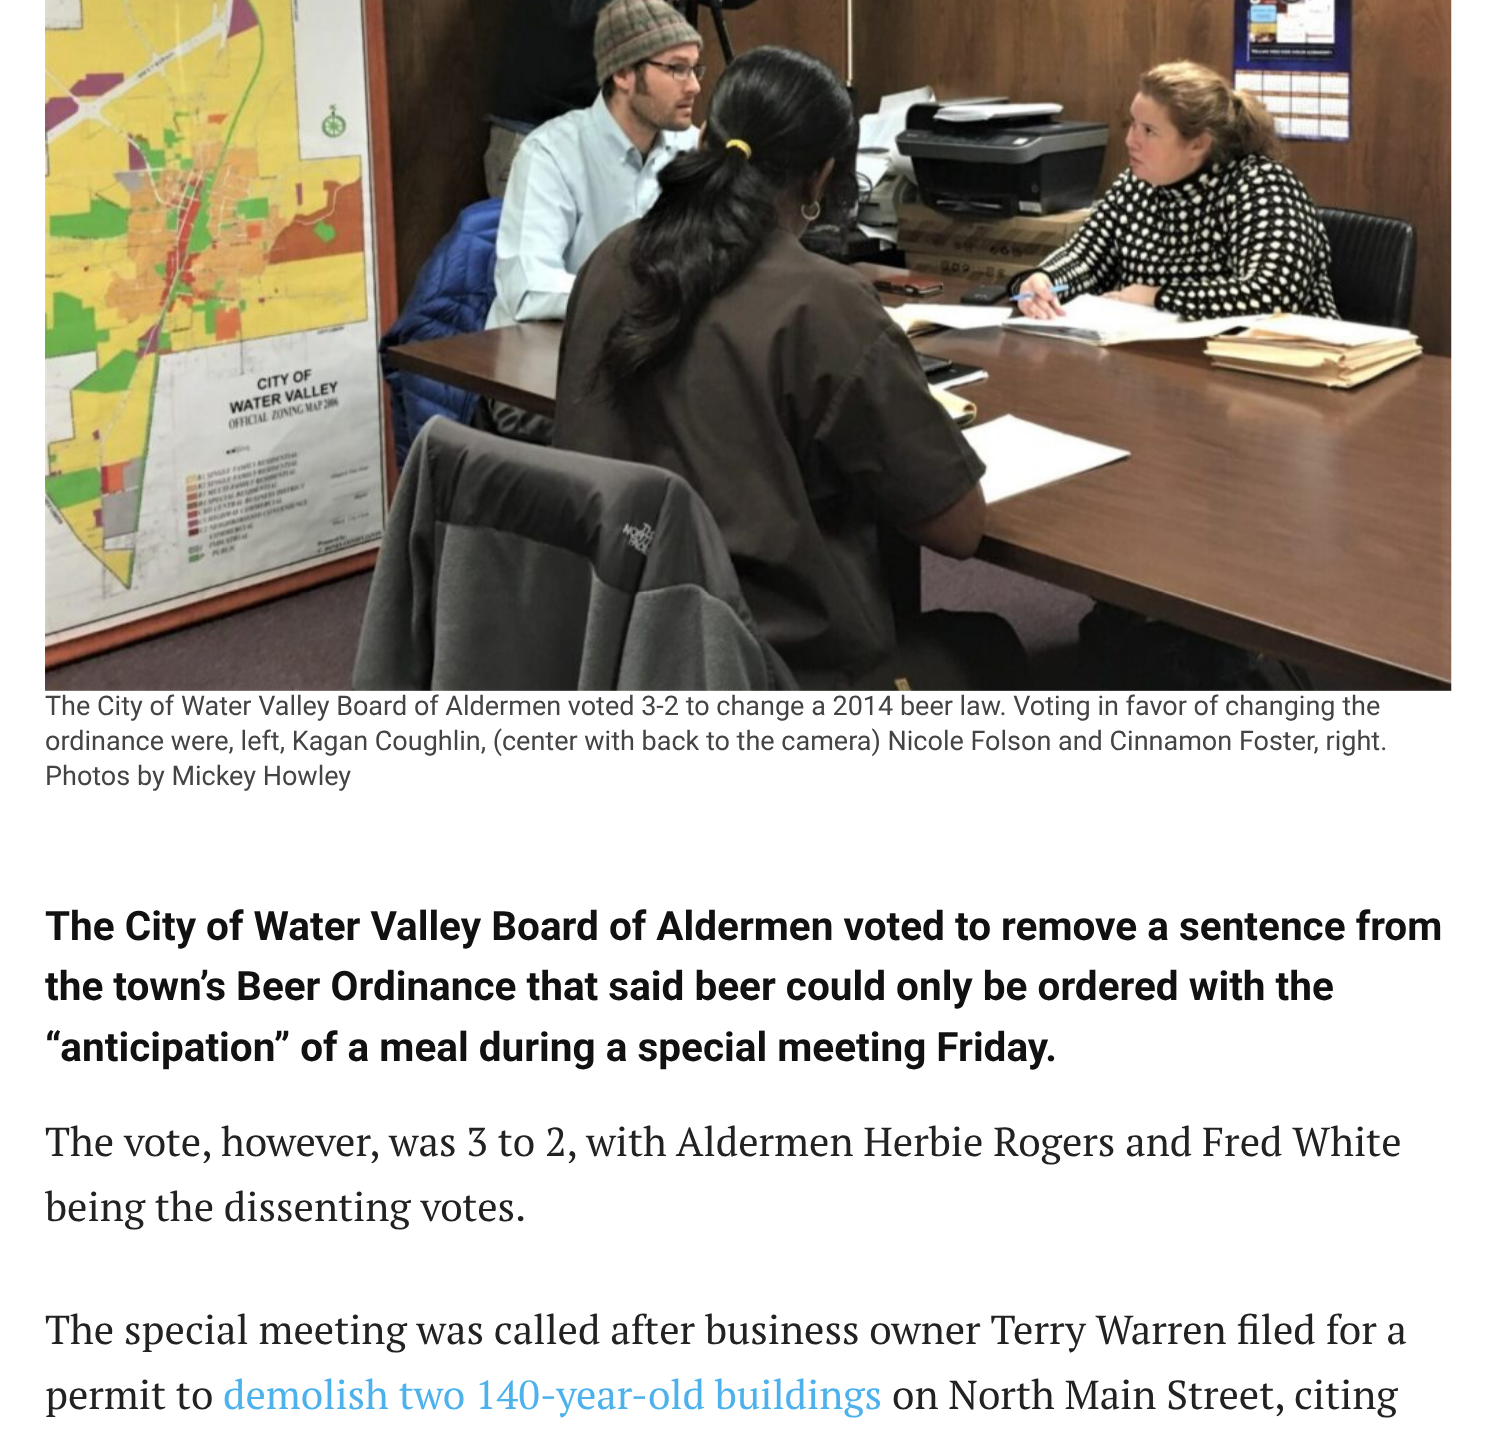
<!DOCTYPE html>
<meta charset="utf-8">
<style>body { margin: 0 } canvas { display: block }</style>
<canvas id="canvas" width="1495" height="1432"></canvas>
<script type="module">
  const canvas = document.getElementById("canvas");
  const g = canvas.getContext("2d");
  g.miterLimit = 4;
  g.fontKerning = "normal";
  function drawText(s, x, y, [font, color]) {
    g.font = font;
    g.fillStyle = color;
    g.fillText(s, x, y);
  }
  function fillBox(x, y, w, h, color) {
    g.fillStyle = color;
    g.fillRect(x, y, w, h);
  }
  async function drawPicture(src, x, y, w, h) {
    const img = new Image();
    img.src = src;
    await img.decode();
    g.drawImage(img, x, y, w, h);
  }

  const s1 = ["27px Roboto", "#444444"];
  const s2 = ["bold 40.5px Roboto", "#111111"];
  const s3 = ["40.5px PT Serif", "#222222"];
  const s4 = ["40.5px PT Serif", "#4DB2EC"];

  fillBox(0, 0, 1495, 1432, "#FFFFFF");
  await drawPicture("pic1.png", 45, 0, 1407, 691);
  drawText("The City of Water Valley Board of Aldermen voted 3-2 to change a 2014 beer law. Voting in favor of changing the", 45, 715, s1);
  drawText("ordinance were, left, Kagan Coughlin, (center with back to the camera) Nicole Folson and Cinnamon Foster, right.", 45, 750, s1);
  drawText("Photos by Mickey Howley", 45, 785, s1);
  drawText("The City of Water Valley Board of Aldermen voted to remove a sentence from", 45, 940, s2);
  drawText("the town’s Beer Ordinance that said beer could only be ordered with the", 45, 1000, s2);
  drawText("“anticipation” of a meal during a special meeting Friday.", 45, 1061, s2);
  drawText("The vote, however, was 3 to 2, with Aldermen Herbie Rogers and Fred White", 45, 1156, s3);
  drawText("being the dissenting votes.", 45, 1221, s3);
  drawText("The special meeting was called after business owner Terry Warren filed for a", 45, 1344, s3);
  drawText("permit to", 45, 1409, s3);
  drawText("demolish two 140-year-old buildings", 223, 1409, s4);
  drawText("on North Main Street, citing", 892, 1409, s3);
</script>
